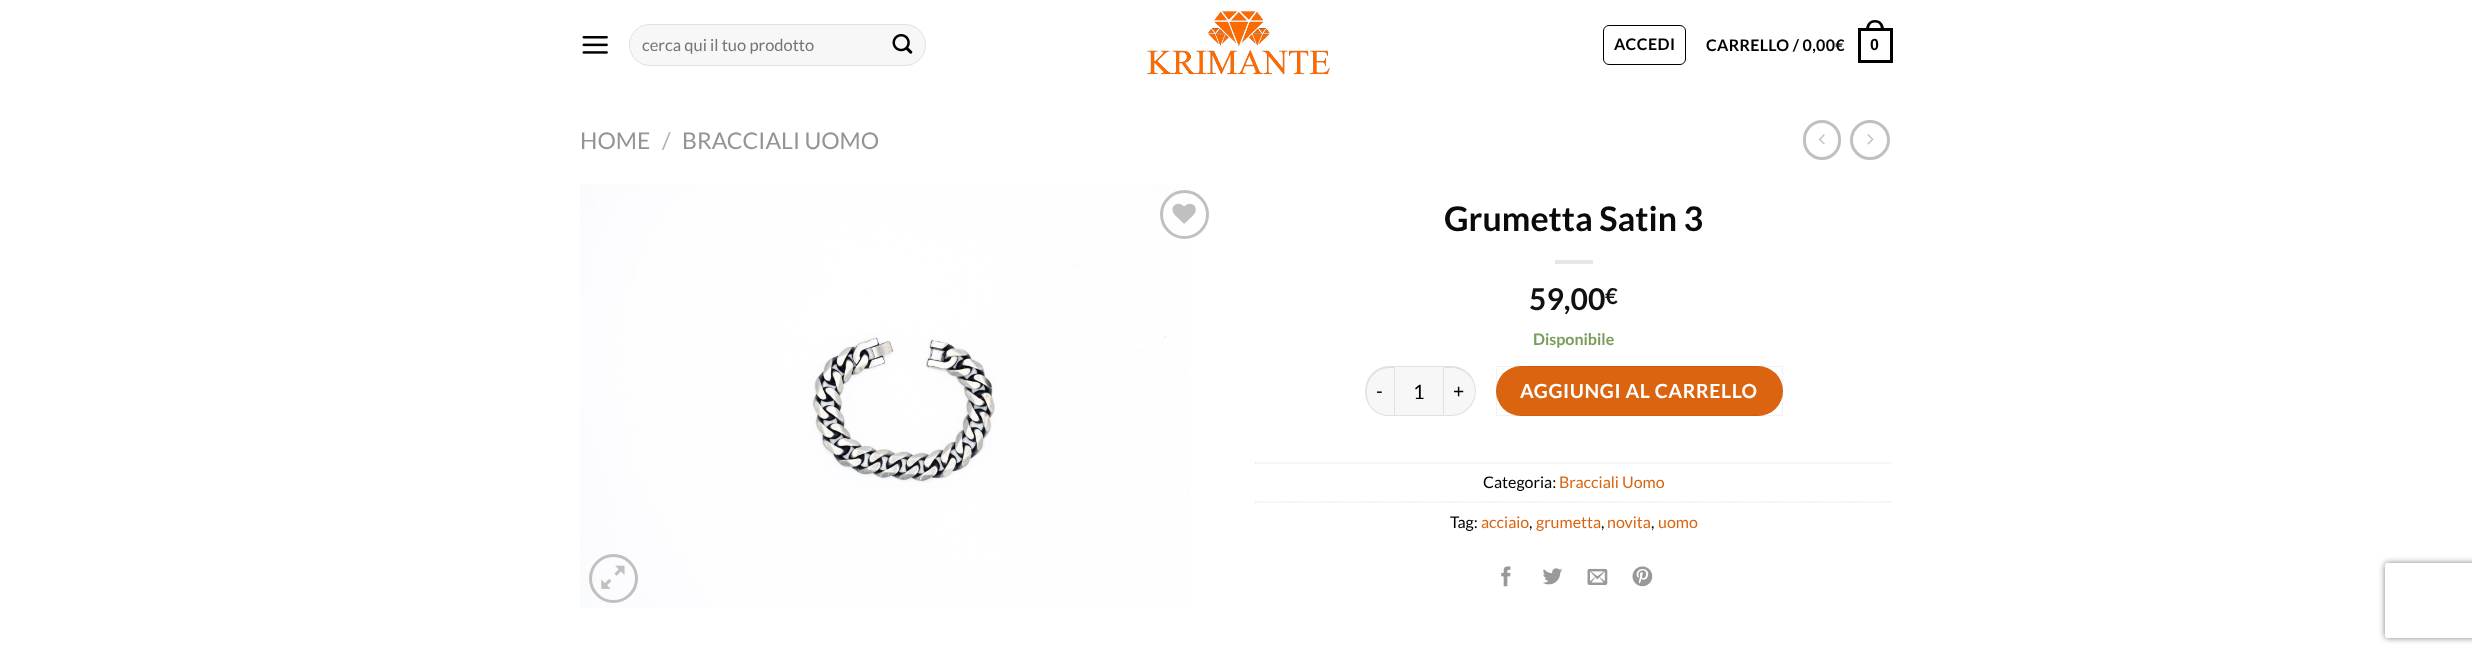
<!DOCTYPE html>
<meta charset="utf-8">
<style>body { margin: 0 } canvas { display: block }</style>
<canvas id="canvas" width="2472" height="655"></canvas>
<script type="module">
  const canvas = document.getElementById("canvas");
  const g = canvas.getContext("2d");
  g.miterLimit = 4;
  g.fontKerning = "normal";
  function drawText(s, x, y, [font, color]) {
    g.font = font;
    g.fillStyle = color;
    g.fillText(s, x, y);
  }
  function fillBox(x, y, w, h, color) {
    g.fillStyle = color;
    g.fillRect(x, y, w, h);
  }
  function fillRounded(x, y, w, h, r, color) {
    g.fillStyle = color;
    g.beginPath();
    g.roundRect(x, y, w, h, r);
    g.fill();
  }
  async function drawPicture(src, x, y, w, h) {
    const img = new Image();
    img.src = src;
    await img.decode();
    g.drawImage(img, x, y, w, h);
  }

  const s1 = ["16.5px Lato", "#757575"];
  const s2 = ["bold 16px Lato", "#000000"];
  const s3 = ["bold 16px Liberation Sans", "#000000"];
  const s4 = ["23px Lato", "#949494"];
  const s5 = ["23px Lato", "#B2B2B2"];
  const s6 = ["bold 34px Lato", "#0A0A0A"];
  const s7 = ["bold 30px Lato", "#111111"];
  const s8 = ["bold 22px Lato", "#111111"];
  const s9 = ["bold 16px Lato", "#7A9C59"];
  const s10 = ["19.4px Lato", "#000000"];
  const s11 = ["20px Lato", "#000000"];
  const s12 = ["bold 19.4px Lato", "#FFFFFF"];
  const s13 = ["16px Lato", "#000000"];
  const s14 = ["16px Lato", "#DA6410"];

  fillBox(0, 0, 2472, 655, "#FFFFFF");
  await drawPicture("pic1.png", 582, 36, 26, 18);
  fillRounded(629, 24, 297, 42, 21, "#F7F7F7");
  g.beginPath();
  g.roundRect(629.5, 24.5, 296, 41, 20.5);
  g.strokeStyle = "rgba(0, 0, 0, 0.09)";
  g.stroke();
  drawText("cerca qui il tuo prodotto", 642, 51, s1);
  await drawPicture("pic2.png", 892, 33, 21, 21);
  await drawPicture("pic3.png", 1147, 11, 183, 64);
  g.beginPath();
  g.roundRect(1603.5, 25.5, 82, 39, 5.5);
  g.strokeStyle = "#000000";
  g.stroke();
  g.letterSpacing = "0.5px";
  drawText("ACCEDI", 1614, 50, s2);
  g.letterSpacing = "0.3px";
  drawText("CARRELLO / 0,00€", 1706, 51, s2);
  g.lineWidth = 3;
  g.strokeRect(1859.5, 29.5, 32, 32);
  g.beginPath();
  g.moveTo(1875, 20);
  g.bezierCurveTo(1881, 20, 1884, 24.5, 1884, 30);
  g.lineTo(1866, 30);
  g.bezierCurveTo(1866, 24.5, 1869, 20, 1875, 20);
  g.closePath();
  g.moveTo(1875, 22.5);
  g.bezierCurveTo(1879.5, 22.5, 1881, 26, 1881, 30);
  g.lineTo(1869, 30);
  g.bezierCurveTo(1869, 26, 1870.5, 22.5, 1875, 22.5);
  g.closePath();
  g.fill("evenodd");
  drawText("0", 1870, 50, s3);
  g.letterSpacing = "0px";
  drawText("HOME", 580, 149, s4);
  drawText("/", 662, 149, s5);
  drawText("BRACCIALI UOMO", 682, 149, s4);
  g.beginPath();
  g.roundRect(1804.5, 121.5, 35, 37, 17.5);
  g.strokeStyle = "#C0C0C0";
  g.stroke();
  await drawPicture("pic4.png", 1818, 134, 7, 11);
  g.beginPath();
  g.arc(1870, 140, 18.5, 0, Math.PI * 2);
  g.stroke();
  await drawPicture("pic5.png", 1867, 134, 7, 11);
  await drawPicture("pic6.png", 580, 184, 610, 424);
  g.beginPath();
  g.arc(1184.5, 214.5, 23, 0, Math.PI * 2);
  g.stroke();
  await drawPicture("pic7.png", 1172, 203, 24, 21);
  g.beginPath();
  g.arc(613.5, 578.5, 23, 0, Math.PI * 2);
  g.stroke();
  await drawPicture("pic8.png", 601, 565, 24, 24);
  drawText("Grumetta Satin 3", 1444, 231, s6);
  fillBox(1555, 260, 38, 4, "#E6E6E6");
  drawText("59,00", 1529, 310, s7);
  drawText("€", 1605, 304, s8);
  drawText("Disponibile", 1533, 345, s9);
  g.fillStyle = "#F7F7F7";
  g.beginPath();
  g.roundRect(1365, 366, 29, 50, [25, 0, 0, 25]);
  g.fill();
  g.fillStyle = "rgba(0, 0, 0, 0.09)";
  g.beginPath();
  g.moveTo(1390, 366);
  g.lineTo(1394, 366);
  g.lineTo(1394, 416);
  g.lineTo(1385, 416);
  g.bezierCurveTo(1356, 410, 1360, 366, 1390, 366);
  g.closePath();
  g.moveTo(1390, 368);
  g.lineTo(1394, 368);
  g.lineTo(1394, 415);
  g.lineTo(1385, 415);
  g.bezierCurveTo(1358, 409, 1362, 368, 1390, 368);
  g.closePath();
  g.fill("evenodd");
  g.letterSpacing = "0.6px";
  drawText("-", 1376, 398, s10);
  g.fillStyle = "#F7F7F7";
  g.beginPath();
  g.rect(1394.5, 366.5, 49, 49);
  g.fill();
  g.strokeStyle = "#E1E1E1";
  g.lineWidth = 1;
  g.stroke();
  g.letterSpacing = "0px";
  drawText("1", 1413, 399, s11);
  g.fillStyle = "#F7F7F7";
  g.beginPath();
  g.roundRect(1444, 366, 32, 50, [0, 25, 25, 0]);
  g.fill();
  g.fillStyle = "rgba(0, 0, 0, 0.09)";
  g.beginPath();
  g.moveTo(1444, 366);
  g.lineTo(1451, 366);
  g.bezierCurveTo(1465, 366, 1476, 377, 1476, 391);
  g.bezierCurveTo(1476, 405, 1465, 416, 1451, 416);
  g.lineTo(1444, 416);
  g.closePath();
  g.moveTo(1444, 368);
  g.lineTo(1451, 368);
  g.bezierCurveTo(1464, 368, 1475, 378, 1475, 391);
  g.bezierCurveTo(1475, 404, 1464, 415, 1451, 415);
  g.lineTo(1444, 415);
  g.closePath();
  g.fill("evenodd");
  g.letterSpacing = "0.6px";
  drawText("+", 1453, 398, s10);
  fillRounded(1496, 366, 287, 50, 25, "#DA6410");
  g.strokeStyle = "rgba(0, 0, 0, 0.05)";
  g.strokeRect(1496.5, 366.5, 286, 49);
  drawText("AGGIUNGI AL CARRELLO", 1520, 398, s12);
  g.beginPath();
  g.moveTo(1255, 463);
  g.lineTo(1892.5, 463);
  g.strokeStyle = "#DDDDDD";
  g.lineWidth = 1.2;
  g.setLineDash([1.25, 1.25]);
  g.stroke();
  g.letterSpacing = "0px";
  drawText("Categoria:", 1483, 488, s13);
  drawText("Bracciali Uomo", 1559, 488, s14);
  g.beginPath();
  g.moveTo(1255, 502);
  g.lineTo(1892.5, 502);
  g.stroke();
  drawText("Tag:", 1450, 528, s13);
  drawText("acciaio", 1481, 528, s14);
  drawText(",", 1529, 528, s13);
  drawText("grumetta", 1536, 528, s14);
  drawText(",", 1601, 528, s13);
  drawText("novita", 1607, 528, s14);
  drawText(",", 1651, 528, s13);
  drawText("uomo", 1658, 528, s14);
  await drawPicture("pic9.png", 1501, 566, 10, 21);
  await drawPicture("pic10.png", 1542, 568, 20, 17);
  await drawPicture("pic11.png", 1587, 568, 21, 17);
  await drawPicture("pic12.png", 1632, 566, 21, 21);
  g.save();
  g.beginPath();
  g.moveTo(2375, 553);
  g.lineTo(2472, 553);
  g.lineTo(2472, 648);
  g.lineTo(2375, 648);
  g.closePath();
  g.moveTo(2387.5, 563);
  g.lineTo(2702.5, 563);
  g.bezierCurveTo(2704, 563, 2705, 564, 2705, 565.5);
  g.lineTo(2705, 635.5);
  g.bezierCurveTo(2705, 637, 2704, 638, 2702.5, 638);
  g.lineTo(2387.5, 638);
  g.bezierCurveTo(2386, 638, 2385, 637, 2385, 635.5);
  g.lineTo(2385, 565.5);
  g.bezierCurveTo(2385, 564, 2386, 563, 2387.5, 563);
  g.closePath();
  g.clip("evenodd");
  g.fillStyle = "#808080";
  g.filter = "blur(3px)";
  g.beginPath();
  g.roundRect(2385, 563, 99, 75, 2.5);
  g.fill();
  g.filter = "none";
  g.restore();
</script>
